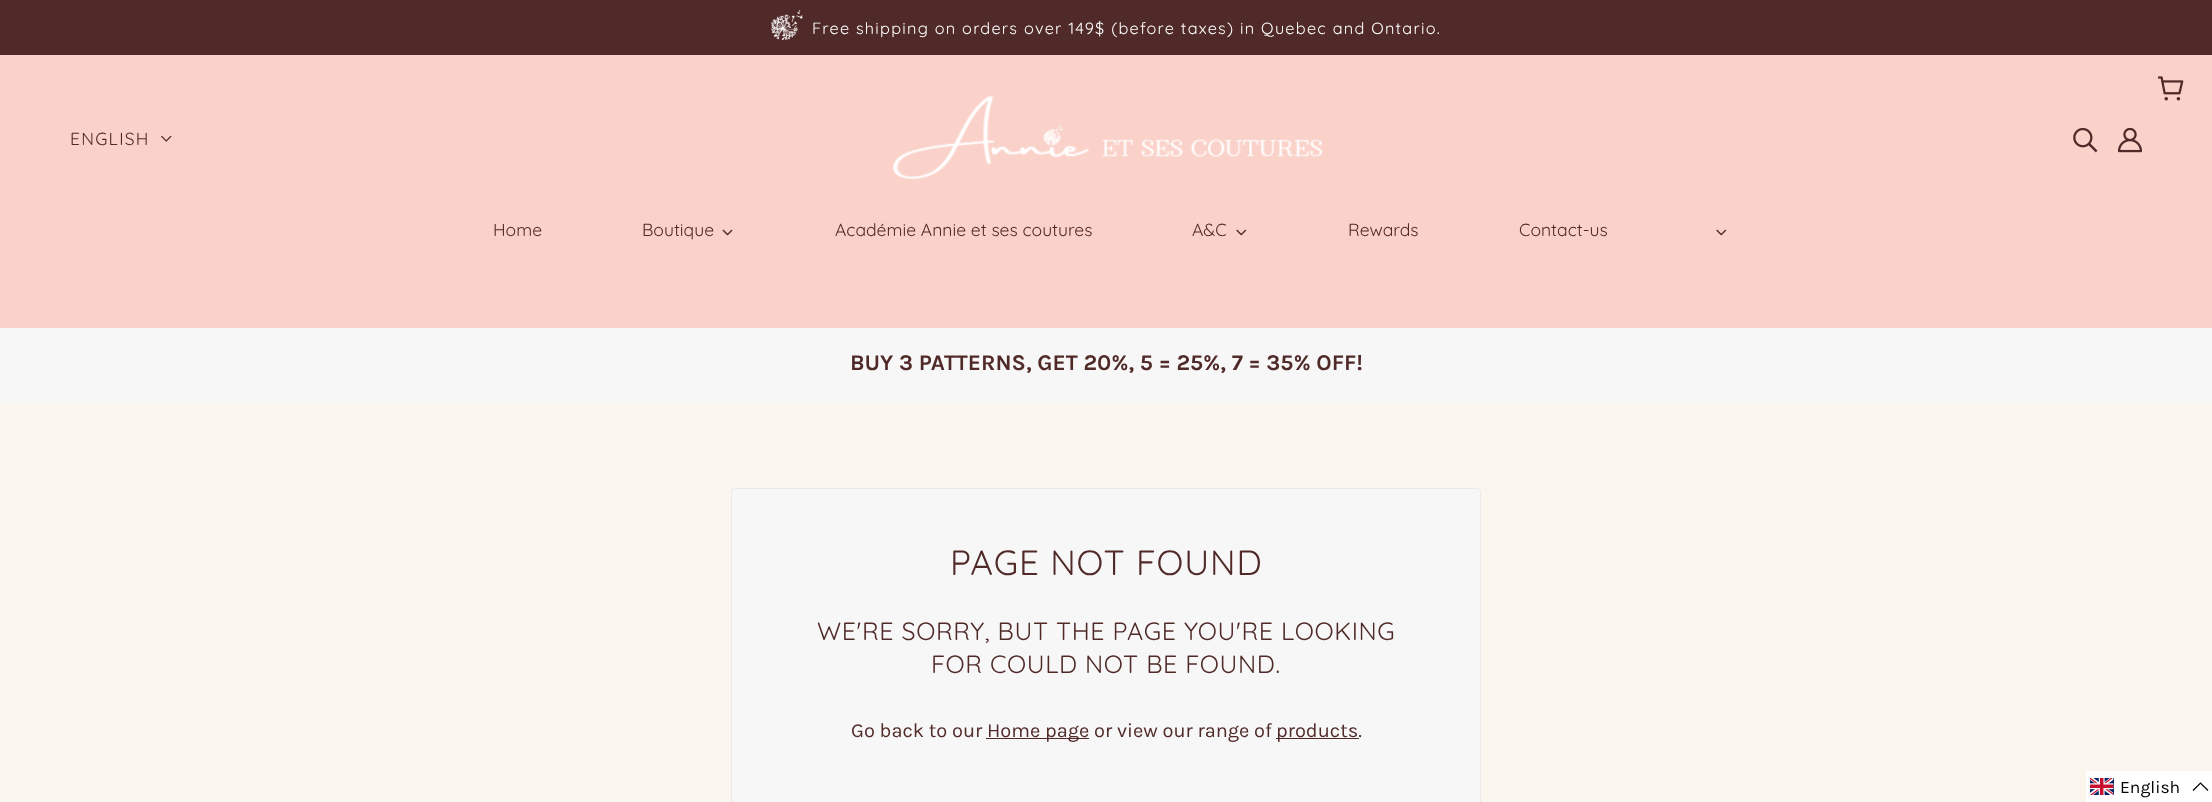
<!DOCTYPE html>
<meta charset="utf-8">
<style>body { margin: 0 } canvas { display: block }</style>
<canvas id="canvas" width="2212" height="802"></canvas>
<script type="module">
  const canvas = document.getElementById("canvas");
  const g = canvas.getContext("2d");
  g.miterLimit = 4;
  g.fontKerning = "normal";
  function drawText(s, x, y, [font, color]) {
    g.font = font;
    g.fillStyle = color;
    g.fillText(s, x, y);
  }
  function fillBox(x, y, w, h, color) {
    g.fillStyle = color;
    g.fillRect(x, y, w, h);
  }
  async function drawPicture(src, x, y, w, h) {
    const img = new Image();
    img.src = src;
    await img.decode();
    g.drawImage(img, x, y, w, h);
  }

  const s1 = ["300 16.25px Quicksand", "#FFFFFF"];
  const s2 = ["300 17.5px Quicksand", "#502A28"];
  const s3 = ["bold 22.5px Karla", "#502A28"];
  const s4 = ["300 35px Quicksand", "#502A28"];
  const s5 = ["300 25px Quicksand", "#502A28"];
  const s6 = ["20px Karla", "#502A28"];
  const s7 = ["17.5px Karla", "#000000"];

  fillBox(0, 0, 2212, 802, "#FAF6EE");
  fillBox(0, 0, 2212, 55, "#502A28");
  await drawPicture("pic1.png", 771, 10, 32, 30);
  g.letterSpacing = "1.25px";
  drawText("Free shipping on orders over 149$ (before taxes) in Quebec and Ontario.", 812, 34, s1);
  fillBox(0, 55, 2212, 273, "#FAD2CA");
  drawText("ENGLISH", 70, 145, s2);
  await drawPicture("pic2.png", 161, 135, 11, 7);
  await drawPicture("pic3.png", 893, 96, 430, 83);
  await drawPicture("pic4.png", 2073, 128, 25, 25);
  await drawPicture("pic5.png", 2118, 128, 24, 25);
  await drawPicture("pic6.png", 2158, 76, 26, 25);
  g.letterSpacing = "0px";
  drawText("Home", 493, 236, s2);
  drawText("Boutique", 642, 236, s2);
  await drawPicture("pic7.png", 722, 229, 11, 7);
  drawText("Académie Annie et ses coutures", 835, 236, s2);
  drawText("A&C", 1192, 236, s2);
  await drawPicture("pic8.png", 1236, 229, 11, 7);
  drawText("Rewards", 1348, 236, s2);
  drawText("Contact-us", 1519, 236, s2);
  await drawPicture("pic8.png", 1716, 229, 11, 7);
  fillBox(0, 328, 2212, 75, "#F7F7F7");
  drawText("BUY 3 PATTERNS, GET 20%, 5 = 25%, 7 = 35% OFF!", 850, 370, s3);
  g.fillStyle = "#F7F7F7";
  g.beginPath();
  g.roundRect(731.5, 488.5, 749, 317, 3.5);
  g.fill();
  g.strokeStyle = "#EAEAEA";
  g.stroke();
  g.letterSpacing = "0.9px";
  drawText("PAGE NOT FOUND", 950, 575, s4);
  g.letterSpacing = "0.6px";
  drawText("WE'RE SORRY, BUT THE PAGE YOU'RE LOOKING", 817, 640, s5);
  drawText("FOR COULD NOT BE FOUND.", 931, 673, s5);
  g.letterSpacing = "0px";
  drawText("Go back to our", 851, 737, s6);
  fillBox(986, 738, 103, 1, "#502A28");
  drawText("Home page or view our range of", 987, 737, s6);
  fillBox(1276, 738, 83, 1, "#502A28");
  drawText("products.", 1276, 737, s6);
  fillBox(2086, 771, 126, 31, "#FFFFFF");
  await drawPicture("pic9.png", 2090, 778, 24, 17);
  drawText("English", 2120, 793, s7);
  g.beginPath();
  g.moveTo(2208, 790.5);
  g.lineTo(2200.5, 783);
  g.lineTo(2193, 790.5);
  g.strokeStyle = "#000000";
  g.lineWidth = 1.2;
  g.stroke();
</script>
